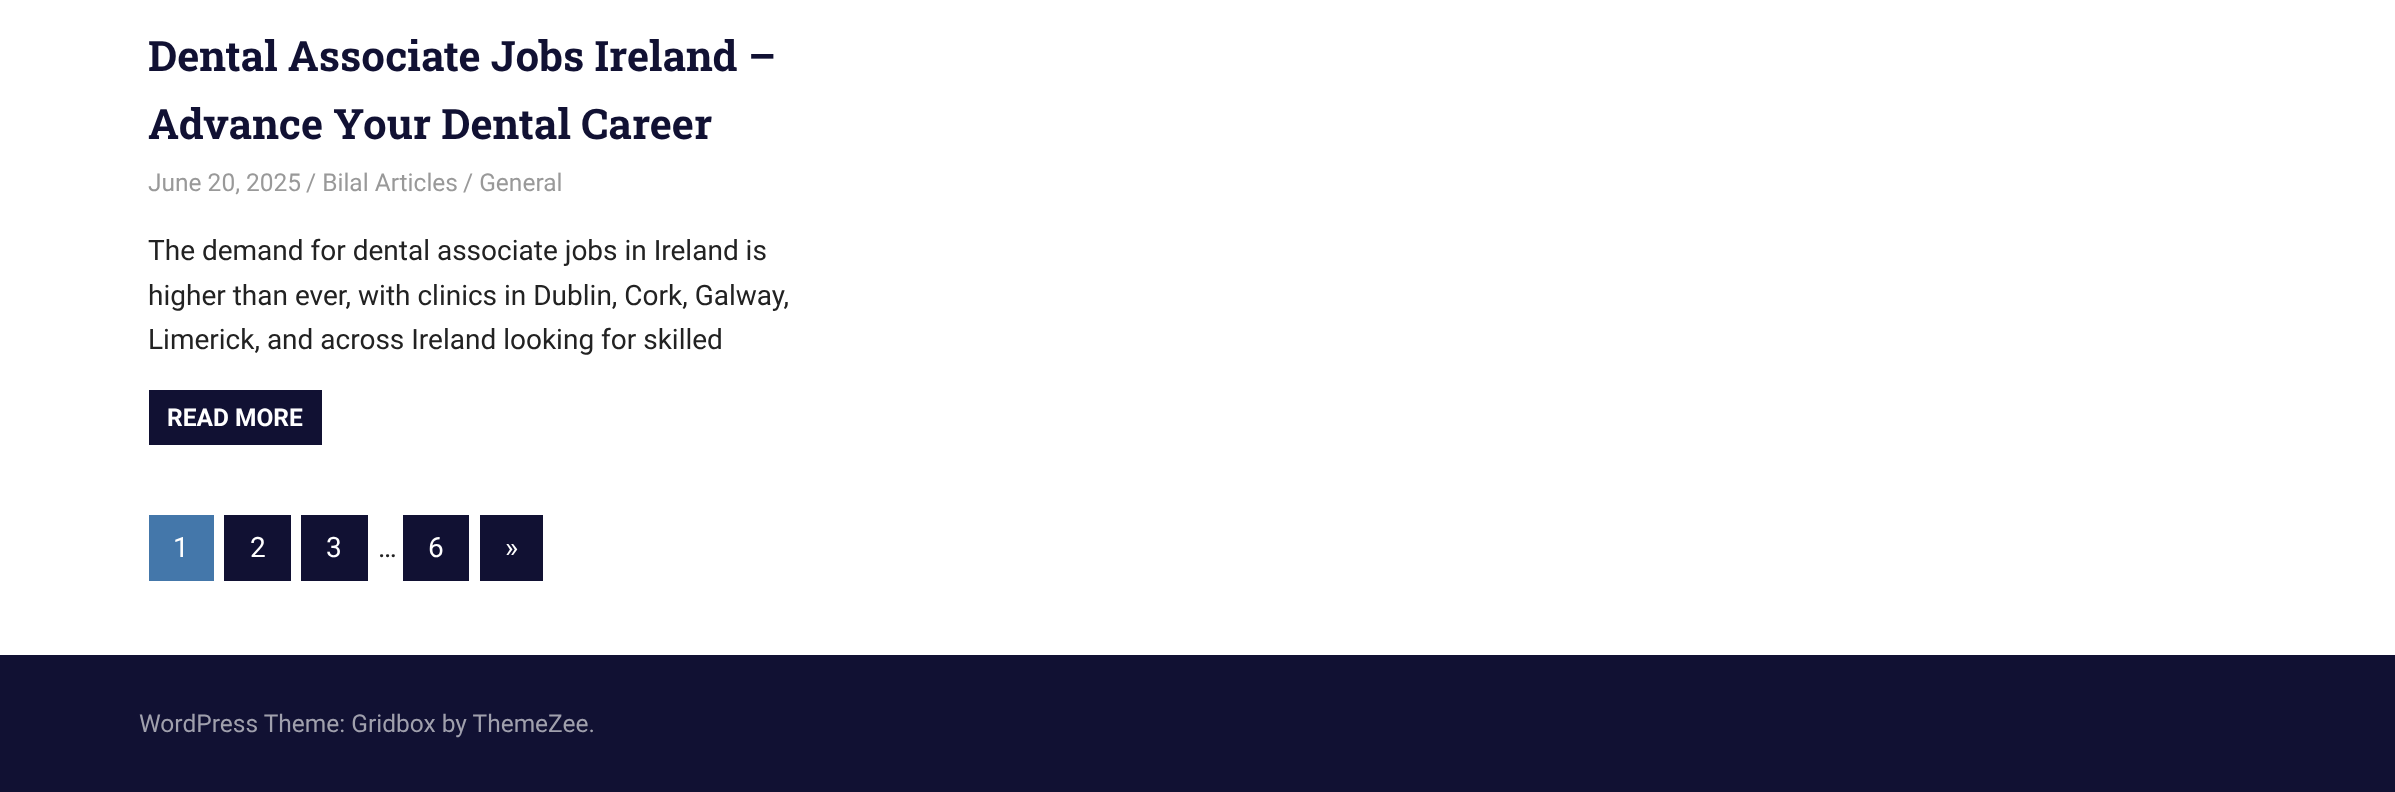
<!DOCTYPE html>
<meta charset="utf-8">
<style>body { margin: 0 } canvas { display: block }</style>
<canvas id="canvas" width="2395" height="792"></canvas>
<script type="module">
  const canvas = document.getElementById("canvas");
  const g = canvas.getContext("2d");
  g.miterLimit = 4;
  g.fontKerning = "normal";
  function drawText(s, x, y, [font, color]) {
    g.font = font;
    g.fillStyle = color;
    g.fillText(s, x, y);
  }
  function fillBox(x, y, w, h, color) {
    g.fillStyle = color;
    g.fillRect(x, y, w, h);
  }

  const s1 = ["bold 42px Roboto Slab", "#111133"];
  const s2 = ["24.5px Roboto", "#999999"];
  const s3 = ["28px Roboto", "#222222"];
  const s4 = ["bold 24.5px Roboto", "#FFFFFF"];
  const s5 = ["28px Roboto", "#FFFFFF"];
  const s6 = ["24.5px Roboto", "#A0A0AD"];

  fillBox(0, 0, 2395, 792, "#FFFFFF");
  drawText("Dental Associate Jobs Ireland –", 148, 71, s1);
  drawText("Advance Your Dental Career", 148, 139, s1);
  drawText("June 20, 2025", 148, 191, s2);
  drawText("/ Bilal Articles", 306, 191, s2);
  drawText("/ General", 463, 191, s2);
  drawText("The demand for dental associate jobs in Ireland is", 148, 260, s3);
  drawText("higher than ever, with clinics in Dublin, Cork, Galway,", 148, 305, s3);
  drawText("Limerick, and across Ireland looking for skilled", 148, 349, s3);
  fillBox(149, 390, 173, 55, "#111133");
  drawText("READ MORE", 167, 426, s4);
  fillBox(149, 515, 65, 66, "#4477AA");
  drawText("1", 173, 557, s5);
  fillBox(224, 515, 67, 66, "#111133");
  drawText("2", 250, 557, s5);
  fillBox(301, 515, 67, 66, "#111133");
  drawText("3", 326, 557, s5);
  fillBox(403, 515, 66, 66, "#111133");
  drawText("6", 428, 557, s5);
  fillBox(480, 515, 63, 66, "#111133");
  drawText("»", 505, 557, s5);
  drawText("…", 378, 557, s3);
  fillBox(0, 655, 2395, 137, "#111133");
  drawText("WordPress Theme: Gridbox by ThemeZee.", 139, 732, s6);
</script>
